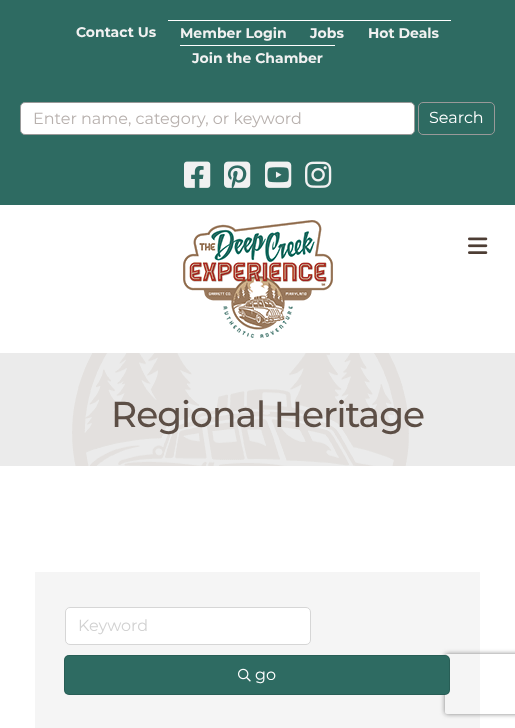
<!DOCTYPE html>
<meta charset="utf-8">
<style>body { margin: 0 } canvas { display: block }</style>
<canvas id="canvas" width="515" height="728"></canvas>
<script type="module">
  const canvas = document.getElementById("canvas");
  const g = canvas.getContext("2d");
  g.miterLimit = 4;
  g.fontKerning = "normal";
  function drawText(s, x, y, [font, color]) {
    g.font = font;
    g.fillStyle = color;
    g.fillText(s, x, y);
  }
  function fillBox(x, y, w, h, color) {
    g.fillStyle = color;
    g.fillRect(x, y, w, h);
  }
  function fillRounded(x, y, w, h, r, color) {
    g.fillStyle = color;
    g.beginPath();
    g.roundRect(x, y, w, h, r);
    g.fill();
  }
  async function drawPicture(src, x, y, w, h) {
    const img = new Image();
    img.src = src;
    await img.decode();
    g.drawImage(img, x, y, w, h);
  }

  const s1 = ["bold 14px Montserrat", "#F1F1F1"];
  const s2 = ["16px Montserrat", "#B8B1AE"];
  const s3 = ["16px Montserrat", "#FFFFFF"];
  const s4 = ["500 36px Montserrat", "#5C4E45"];
  const s5 = ["16px Montserrat", "#D2D2D2"];

  fillBox(0, 0, 515, 728, "#FFFFFF");
  fillBox(0, 353, 515, 113, "#EBEBEB");
  fillBox(0, 0, 515, 205, "#2E6B62");
  drawText("Contact Us", 76, 37, s1);
  fillBox(168, 20, 283, 1, "#FFFFFF");
  drawText("Member Login", 180, 38, s1);
  drawText("Jobs", 310, 38, s1);
  drawText("Hot Deals", 368, 38, s1);
  fillBox(180, 45, 155, 1, "#FFFFFF");
  drawText("Join the Chamber", 192, 63, s1);
  g.fillStyle = "#FFFFFF";
  g.beginPath();
  g.roundRect(20.5, 102.5, 394, 32, 4.5);
  g.fill();
  g.strokeStyle = "#999999";
  g.stroke();
  drawText("Enter name, category, or keyword", 33, 124, s2);
  g.beginPath();
  g.roundRect(418.5, 102.5, 76, 32, 4.5);
  g.stroke();
  drawText("Search", 429, 123, s3);
  await drawPicture("pic1.png", 184, 161, 27, 27);
  await drawPicture("pic2.png", 224, 161, 27, 27);
  await drawPicture("pic3.png", 265, 161, 27, 27);
  await drawPicture("pic4.png", 305, 161, 27, 27);
  await drawPicture("pic5.png", 183, 220, 150, 118);
  await drawPicture("pic6.png", 468, 237, 20, 17);
  await drawPicture("pic7.png", 72, 353, 337, 113);
  g.letterSpacing = "-1px";
  drawText("Regional Heritage", 111, 427, s4);
  fillBox(35, 572, 445, 156, "#F5F5F5");
  g.fillStyle = "#FFFFFF";
  g.beginPath();
  g.roundRect(65.5, 607.5, 245, 37, 4.5);
  g.fill();
  g.strokeStyle = "#D6D6D6";
  g.stroke();
  g.letterSpacing = "0px";
  drawText("Keyword", 78, 631, s5);
  g.save();
  g.beginPath();
  g.moveTo(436, 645);
  g.lineTo(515, 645);
  g.lineTo(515, 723);
  g.lineTo(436, 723);
  g.closePath();
  g.moveTo(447, 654);
  g.lineTo(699, 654);
  g.bezierCurveTo(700, 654, 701, 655, 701, 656);
  g.lineTo(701, 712);
  g.bezierCurveTo(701, 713, 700, 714, 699, 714);
  g.lineTo(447, 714);
  g.bezierCurveTo(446, 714, 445, 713, 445, 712);
  g.lineTo(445, 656);
  g.bezierCurveTo(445, 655, 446, 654, 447, 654);
  g.closePath();
  g.clip("evenodd");
  g.fillStyle = "#808080";
  g.filter = "blur(2.5px)";
  g.beginPath();
  g.roundRect(445, 654, 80, 60, 2);
  g.fill();
  g.filter = "none";
  g.restore();
  fillRounded(64, 655, 386, 40, 5, "#2E6B62");
  g.beginPath();
  g.roundRect(64.5, 655.5, 385, 39, 4.5);
  g.strokeStyle = "rgba(0, 0, 0, 0.12)";
  g.stroke();
  await drawPicture("pic8.png", 238, 668, 13, 14);
  drawText("go", 255, 680, s3);
</script>
